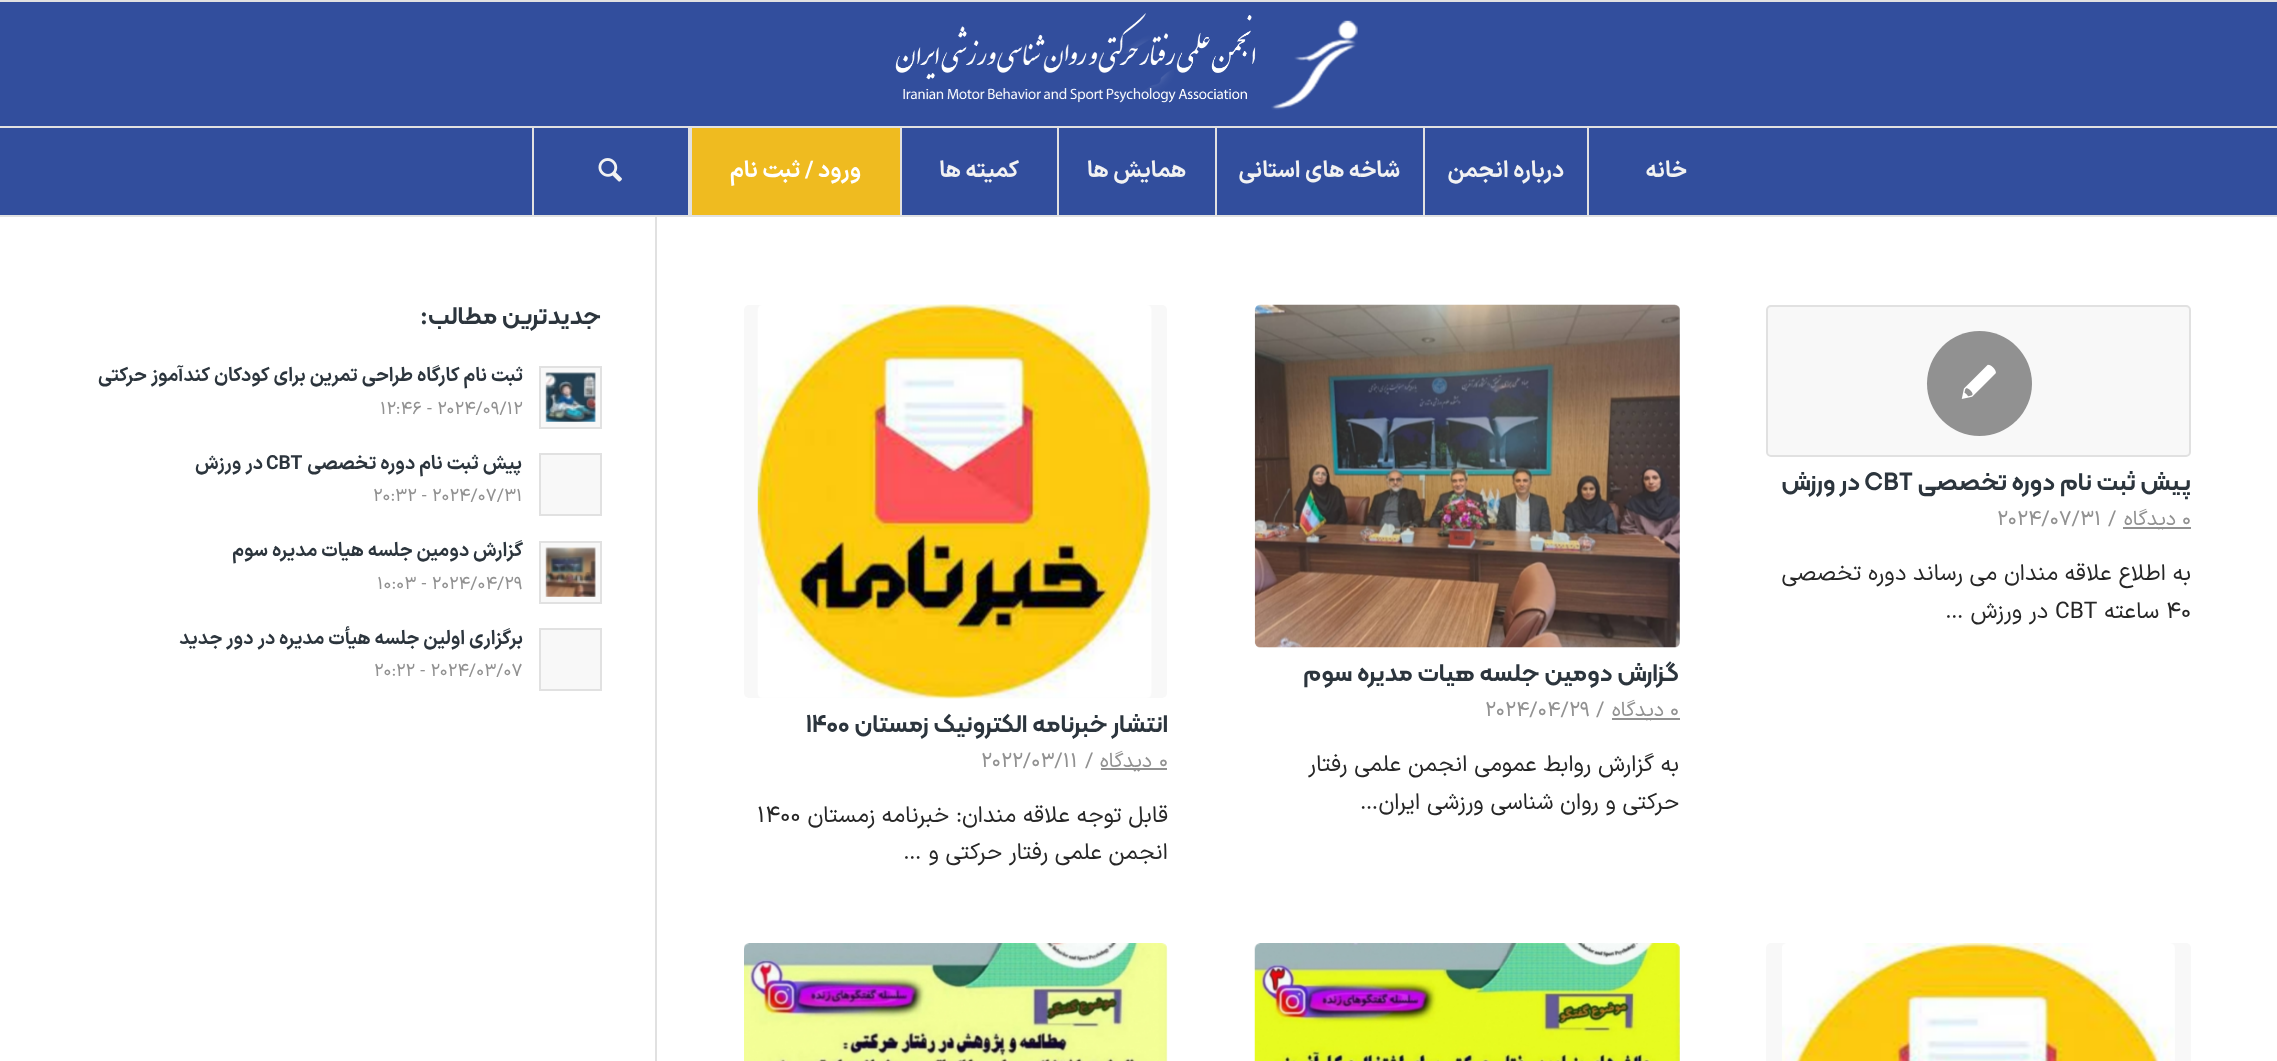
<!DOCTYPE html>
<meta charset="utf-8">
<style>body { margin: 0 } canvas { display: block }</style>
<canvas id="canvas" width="2277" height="1061"></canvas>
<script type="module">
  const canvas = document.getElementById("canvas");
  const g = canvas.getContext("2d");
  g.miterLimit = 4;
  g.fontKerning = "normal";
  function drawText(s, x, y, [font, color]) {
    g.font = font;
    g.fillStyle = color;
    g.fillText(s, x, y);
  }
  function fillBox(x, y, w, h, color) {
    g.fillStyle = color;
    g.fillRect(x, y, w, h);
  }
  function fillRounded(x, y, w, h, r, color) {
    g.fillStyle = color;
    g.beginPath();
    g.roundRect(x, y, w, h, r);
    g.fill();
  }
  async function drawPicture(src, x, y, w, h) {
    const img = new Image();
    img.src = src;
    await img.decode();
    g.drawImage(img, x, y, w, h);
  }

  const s1 = ["bold 22.75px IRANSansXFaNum", "#F2F2F2"];
  const s2 = ["bold 22.75px IRANSansXFaNum", "#FFFFFF"];
  const s3 = ["600 25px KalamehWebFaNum", "#2C353D"];
  const s4 = ["20.5px IRANSansXFaNum", "#919191"];
  const s5 = ["22.75px IRANSansXFaNum", "#262626"];
  const s6 = ["bold 19.3px IRANSansXFaNum", "#2C353D"];
  const s7 = ["17.75px IRANSansXFaNum", "#919191"];

  fillBox(0, 0, 2277, 1061, "#324E9D");
  fillBox(0, 0, 2277, 2, "#E1E1E1");
  fillBox(0, 215, 2277, 2, "#E1E1E1");
  await drawPicture("pic1.png", 895, 13, 463, 97);
  fillBox(0, 126, 2277, 2, "#E1E1E1");
  fillBox(1587, 128, 2, 87, "#E1E1E1");
  g.direction = "rtl";
  drawText("خانه", 1687, 177, s1);
  fillBox(1423, 128, 2, 87, "#E1E1E1");
  drawText("درباره انجمن", 1564, 177, s1);
  fillBox(1215, 128, 2, 87, "#E1E1E1");
  drawText("شاخه های استانی", 1400, 177, s1);
  fillBox(1057, 128, 2, 87, "#E1E1E1");
  drawText("همایش ها", 1186, 177, s1);
  fillBox(900, 128, 2, 87, "#E1E1E1");
  drawText("کمیته ها", 1019, 177, s1);
  fillBox(692, 128, 208, 87, "#EFBB20");
  fillBox(688, 128, 4, 87, "#E1E1E1");
  drawText("ورود / ثبت نام", 861, 177, s2);
  fillBox(532, 128, 2, 87, "#E1E1E1");
  await drawPicture("pic2.png", 598, 158, 24, 24);
  fillBox(0, 217, 2277, 844, "#FFFFFF");
  fillBox(655, 217, 2, 844, "#E1E1E1");
  g.fillStyle = "#F8F8F8";
  g.beginPath();
  g.roundRect(1767, 306, 423, 150, 4);
  g.fill();
  g.strokeStyle = "#E1E1E1";
  g.lineWidth = 2;
  g.stroke();
  g.fillStyle = "#919191";
  g.beginPath();
  g.arc(1979.5, 383.5, 52.5, 0, Math.PI * 2);
  g.fill();
  await drawPicture("pic3.png", 1961, 364, 35, 35);
  drawText("پیش ثبت نام دوره تخصصی", 2191, 490, s3);
  g.direction = "ltr";
  drawText("CBT", 1864, 490, s3);
  g.direction = "rtl";
  drawText("در ورزش", 1860, 490, s3);
  g.direction = "ltr";
  drawText("0", 2182, 525, s4);
  fillBox(2123, 527, 68, 2, "#919191");
  g.direction = "rtl";
  drawText("دیدگاه", 2176, 525, s4);
  g.direction = "ltr";
  drawText("/", 2108, 525, s4);
  drawText("2024/07/31", 1997, 525, s4);
  g.direction = "rtl";
  drawText("به اطلاع علاقه مندان می رساند دوره تخصصی", 2191, 580, s5);
  g.direction = "ltr";
  drawText("40", 2166, 618, s5);
  g.direction = "rtl";
  drawText("ساعته", 2159, 618, s5);
  g.direction = "ltr";
  drawText("CBT", 2055, 618, s5);
  g.direction = "rtl";
  drawText("در ورزش …", 2048, 618, s5);
  fillRounded(1255, 305, 425, 343, 5, "#F8F8F8");
  await drawPicture("pic4.png", 1254, 304, 426, 344);
  drawText("گزارش دومین جلسه هیات مدیره سوم", 1679, 681, s3);
  g.direction = "ltr";
  drawText("0", 1670, 716, s4);
  fillBox(1612, 718, 68, 2, "#919191");
  g.direction = "rtl";
  drawText("دیدگاه", 1664, 716, s4);
  g.direction = "ltr";
  drawText("/", 1596, 716, s4);
  drawText("2024/04/29", 1485, 716, s4);
  g.direction = "rtl";
  drawText("به گزارش روابط عمومی انجمن علمی رفتار", 1679, 771, s5);
  drawText("حرکتی و روان شناسی ورزشی ایران…", 1679, 809, s5);
  fillRounded(744, 305, 423, 393, 5, "#F8F8F8");
  await drawPicture("pic5.png", 757, 304, 395, 395);
  drawText("انتشار خبرنامه الکترونیک زمستان", 1168, 732, s3);
  g.direction = "ltr";
  drawText("1400", 806, 732, s3);
  drawText("0", 1159, 767, s4);
  fillBox(1101, 768, 66, 2, "#919191");
  g.direction = "rtl";
  drawText("دیدگاه", 1152, 767, s4);
  g.direction = "ltr";
  drawText("/", 1085, 767, s4);
  drawText("2022/03/11", 981, 767, s4);
  g.direction = "rtl";
  drawText("قابل توجه علاقه مندان:", 1168, 822, s5);
  drawText("خبرنامه زمستان", 949, 822, s5);
  g.direction = "ltr";
  drawText("1400", 757, 822, s5);
  g.direction = "rtl";
  drawText("انجمن علمی رفتار حرکتی و …", 1168, 859, s5);
  fillRounded(1766, 943, 425, 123, 5, "#F8F8F8");
  await drawPicture("pic6.png", 1782, 943, 393, 118);
  fillRounded(1255, 943, 425, 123, 5, "#F8F8F8");
  await drawPicture("pic7.png", 1254, 943, 426, 118);
  fillRounded(744, 943, 423, 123, 5, "#F8F8F8");
  await drawPicture("pic8.png", 744, 943, 424, 118);
  drawText("جدیدترین مطالب:", 601, 324, s3);
  g.fillStyle = "#F8F8F8";
  g.beginPath();
  g.rect(540, 367, 61, 61);
  g.fill();
  g.stroke();
  await drawPicture("pic9.png", 545, 372, 51, 50);
  drawText("ثبت نام کارگاه طراحی تمرین برای کودکان کندآموز حرکتی", 523, 381, s6);
  g.direction = "ltr";
  drawText("12:46 - 2024/09/12", 380, 414, s7);
  g.fillStyle = "#F8F8F8";
  g.beginPath();
  g.rect(540, 454, 61, 61);
  g.fill();
  g.stroke();
  g.direction = "rtl";
  drawText("پیش ثبت نام دوره تخصصی", 522, 469, s6);
  g.direction = "ltr";
  drawText("CBT", 266, 469, s6);
  g.direction = "rtl";
  drawText("در ورزش", 263, 469, s6);
  g.direction = "ltr";
  drawText("20:32 - 2024/07/31", 373, 501, s7);
  g.fillStyle = "#F8F8F8";
  g.beginPath();
  g.rect(540, 542, 61, 61);
  g.fill();
  g.stroke();
  await drawPicture("pic10.png", 545, 547, 51, 50);
  g.direction = "rtl";
  drawText("گزارش دومین جلسه هیات مدیره سوم", 523, 556, s6);
  g.direction = "ltr";
  drawText("10:03 - 2024/04/29", 377, 589, s7);
  g.fillStyle = "#F8F8F8";
  g.beginPath();
  g.rect(540, 629, 61, 61);
  g.fill();
  g.stroke();
  g.direction = "rtl";
  drawText("برگزاری اولین جلسه هیأت مدیره در دور جدید", 523, 644, s6);
  g.direction = "ltr";
  drawText("20:22 - 2024/03/07", 374, 676, s7);
</script>
